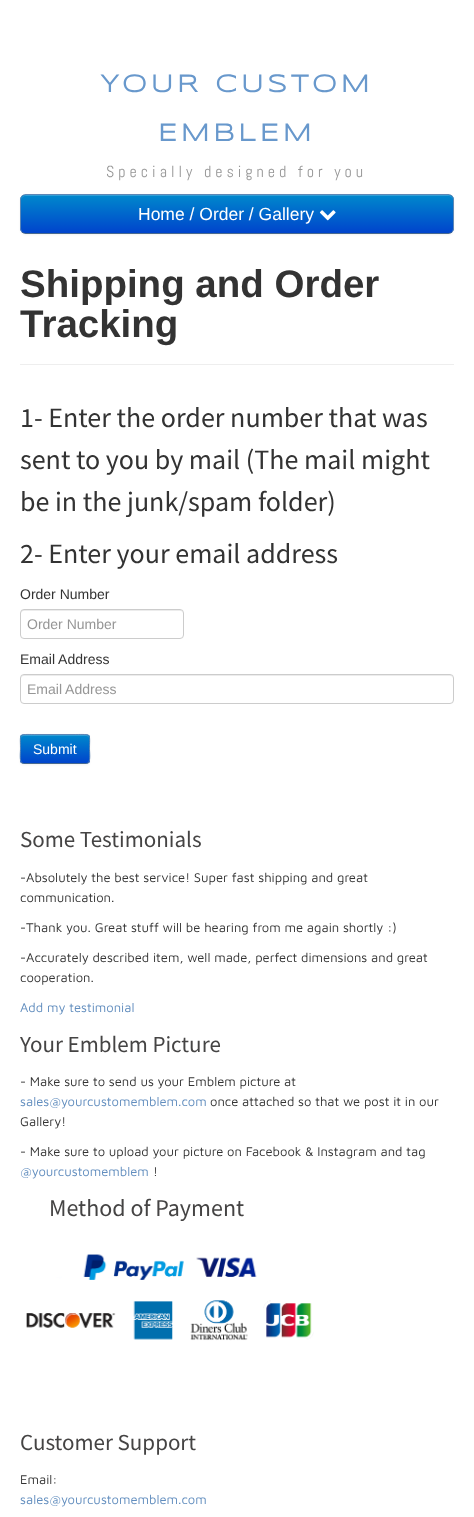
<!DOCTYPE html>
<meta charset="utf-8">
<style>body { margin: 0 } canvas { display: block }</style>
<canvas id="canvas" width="474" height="1517"></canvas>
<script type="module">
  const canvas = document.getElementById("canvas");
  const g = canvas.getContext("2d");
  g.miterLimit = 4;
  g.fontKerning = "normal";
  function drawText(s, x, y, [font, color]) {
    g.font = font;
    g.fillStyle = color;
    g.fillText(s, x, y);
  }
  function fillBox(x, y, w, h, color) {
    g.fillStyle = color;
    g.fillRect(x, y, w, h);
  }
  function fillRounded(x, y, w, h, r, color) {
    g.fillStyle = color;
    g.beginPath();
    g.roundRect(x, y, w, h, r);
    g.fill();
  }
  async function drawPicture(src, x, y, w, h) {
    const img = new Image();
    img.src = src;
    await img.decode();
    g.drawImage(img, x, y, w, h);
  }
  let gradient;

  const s1 = ["bold 25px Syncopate", "#6898CC"];
  const s2 = ["16px Abel", "#969696"];
  const s3 = ["17.5px Liberation Sans", "#FFFFFF"];
  const s4 = ["bold 38.5px Liberation Sans", "#333333"];
  const s5 = ["28px Source Sans Pro", "#333333"];
  const s6 = ["14px Liberation Sans", "#333333"];
  const s7 = ["14px Liberation Sans", "#969696"];
  const s8 = ["14px Liberation Sans", "#FFFFFF"];
  const s9 = ["23px Source Sans Pro", "#454444"];
  const s10 = ["13px Maven Pro", "#333333"];
  const s11 = ["13px Maven Pro", "#618DBE"];
  const s12 = ["24px Source Sans Pro", "#454444"];

  fillBox(0, 0, 474, 1517, "#FFFFFF");
  g.letterSpacing = "4px";
  drawText("YOUR CUSTOM", 100, 92, s1);
  drawText("EMBLEM", 158, 141, s1);
  drawText("Specially designed for you", 106, 177, s2);
  g.fillStyle = "rgba(0, 0, 0, 0.05)";
  g.filter = "blur(1px)";
  g.beginPath();
  g.roundRect(20, 195, 434, 40, 6);
  g.fill();
  g.filter = "none";
  g.save();
  g.beginPath();
  g.roundRect(20, 194, 434, 40, 6);
  g.clip();
  gradient = g.createLinearGradient(237, 195, 237, 233);
  gradient.addColorStop(0, "#0088CC");
  gradient.addColorStop(1, "#0044CC");
  g.fillStyle = gradient;
  g.fillRect(20, 195, 434, 38);
  g.restore();
  g.fillStyle = "#339FD6";
  g.beginPath();
  g.moveTo(26, 196);
  g.lineTo(448, 196);
  g.bezierCurveTo(451, 196, 453, 198, 453, 201);
  g.bezierCurveTo(453, 198, 451, 195, 448, 195);
  g.lineTo(26, 195);
  g.bezierCurveTo(23, 195, 21, 198, 21, 201);
  g.bezierCurveTo(21, 198, 23, 196, 26, 196);
  g.closePath();
  g.fill();
  g.beginPath();
  g.moveTo(452, 232);
  g.bezierCurveTo(451, 233, 449.5, 233.5, 448, 233.5);
  g.lineTo(26, 233.5);
  g.bezierCurveTo(24.5, 233.5, 23, 233, 22, 232);
  g.strokeStyle = "#496A8F";
  g.stroke();
  g.beginPath();
  g.moveTo(22, 232);
  g.bezierCurveTo(21, 231, 20.5, 229.5, 20.5, 228);
  g.lineTo(20.5, 200);
  g.bezierCurveTo(20.5, 198.5, 21, 197, 22, 196);
  g.bezierCurveTo(23, 195, 24.5, 194.5, 26, 194.5);
  g.lineTo(448, 194.5);
  g.bezierCurveTo(449.5, 194.5, 451, 195, 452, 196);
  g.bezierCurveTo(453, 197, 453.5, 198.5, 453.5, 200);
  g.lineTo(453.5, 228);
  g.bezierCurveTo(453.5, 229.5, 453, 231, 452, 232);
  g.strokeStyle = "#5D87B6";
  g.stroke();
  g.letterSpacing = "0px";
  drawText("Home / Order / Gallery", 138, 220, s3);
  await drawPicture("pic1.png", 319, 210, 17, 11);
  drawText("Shipping and Order", 20, 297, s4);
  drawText("Tracking", 20, 337, s4);
  fillBox(20, 364, 434, 1, "#EEEEEE");
  drawText("1- Enter the order number that was", 20, 427, s5);
  drawText("sent to you by mail (The mail might", 20, 469, s5);
  drawText("be in the junk/spam folder)", 20, 511, s5);
  drawText("2- Enter your email address", 20, 563, s5);
  drawText("Order Number", 20, 599, s6);
  g.fillStyle = "#ECECEC";
  g.beginPath();
  g.moveTo(24, 611);
  g.lineTo(180, 611);
  g.bezierCurveTo(182, 611, 183, 612, 183, 614);
  g.bezierCurveTo(183, 612, 182, 610, 180, 610);
  g.lineTo(23, 610);
  g.bezierCurveTo(21, 610, 21, 612, 21, 614);
  g.bezierCurveTo(21, 612, 22, 611, 24, 611);
  g.closePath();
  g.fill();
  g.beginPath();
  g.roundRect(20.5, 609.5, 163, 29, 3.5);
  g.strokeStyle = "#CCCCCC";
  g.stroke();
  drawText("Order Number", 27, 629, s7);
  drawText("Email Address", 20, 664, s6);
  g.fillStyle = "#ECECEC";
  g.beginPath();
  g.moveTo(24, 676);
  g.lineTo(450, 676);
  g.bezierCurveTo(452, 676, 453, 677, 453, 679);
  g.bezierCurveTo(453, 677, 452, 675, 450, 675);
  g.lineTo(24, 675);
  g.bezierCurveTo(22, 675, 21, 677, 21, 679);
  g.bezierCurveTo(21, 677, 22, 676, 24, 676);
  g.closePath();
  g.fill();
  g.beginPath();
  g.roundRect(20.5, 674.5, 433, 29, 3.5);
  g.stroke();
  drawText("Email Address", 27, 694, s7);
  g.fillStyle = "rgba(0, 0, 0, 0.05)";
  g.filter = "blur(1px)";
  g.beginPath();
  g.roundRect(20, 735, 70, 30, 4);
  g.fill();
  g.filter = "none";
  fillRounded(20, 734, 70, 30, 4, "#6898CC");
  g.save();
  g.beginPath();
  g.roundRect(20, 734, 70, 30, 4);
  g.clip();
  gradient = g.createLinearGradient(55, 735, 55, 763);
  gradient.addColorStop(0, "#0088CC");
  gradient.addColorStop(1, "#0044CC");
  g.fillStyle = gradient;
  g.fillRect(20, 735, 70, 28);
  g.restore();
  g.fillStyle = "rgba(255, 255, 255, 0.2)";
  g.beginPath();
  g.moveTo(24, 736);
  g.lineTo(86, 736);
  g.bezierCurveTo(88, 736, 89, 737, 89, 739);
  g.bezierCurveTo(89, 732, 80, 735, 76, 735);
  g.lineTo(34, 735);
  g.bezierCurveTo(30, 735, 21, 732, 21, 739);
  g.bezierCurveTo(21, 737, 22, 736, 24, 736);
  g.closePath();
  g.fill();
  g.beginPath();
  g.moveTo(88.5, 762.5);
  g.lineTo(86.5, 763.5);
  g.lineTo(23.5, 763.5);
  g.lineTo(21.5, 762.5);
  g.strokeStyle = "#496A8F";
  g.stroke();
  g.beginPath();
  g.moveTo(21.5, 762.5);
  g.bezierCurveTo(19.5, 760.5, 20.5, 752, 20.5, 749);
  g.bezierCurveTo(20.5, 733, 18, 734.5, 34.5, 734.5);
  g.lineTo(75.5, 734.5);
  g.bezierCurveTo(92, 734.5, 89.5, 733, 89.5, 749);
  g.bezierCurveTo(89.5, 752, 90.5, 760.5, 88.5, 762.5);
  g.strokeStyle = "#5D87B6";
  g.stroke();
  drawText("Submit", 33, 754, s8);
  drawText("Some Testimonials", 20, 847, s9);
  drawText("-Absolutely the best service! Super fast shipping and great", 20, 882, s10);
  drawText("communication.", 20, 902, s10);
  drawText("-Thank you. Great stuff will be hearing from me again shortly :)", 20, 932, s10);
  drawText("-Accurately described item, well made, perfect dimensions and great", 20, 962, s10);
  drawText("cooperation.", 20, 982, s10);
  drawText("Add my testimonial", 20, 1012, s11);
  drawText("Your Emblem Picture", 20, 1052, s9);
  drawText("- Make sure to send us your Emblem picture at", 20, 1086, s10);
  drawText("sales@yourcustomemblem.com", 20, 1106, s11);
  drawText("once attached so that we post it in our", 210, 1106, s10);
  drawText("Gallery!", 20, 1126, s10);
  drawText("- Make sure to upload your picture on Facebook & Instagram and tag", 20, 1156, s10);
  drawText("@yourcustomemblem", 20, 1176, s11);
  drawText("!", 153, 1176, s10);
  drawText("Method of Payment", 49, 1216, s12);
  await drawPicture("pic2.png", 26, 1254, 288, 87);
  drawText("Customer Support", 20, 1450, s9);
  drawText("Email:", 20, 1484, s10);
  drawText("sales@yourcustomemblem.com", 20, 1504, s11);
</script>
